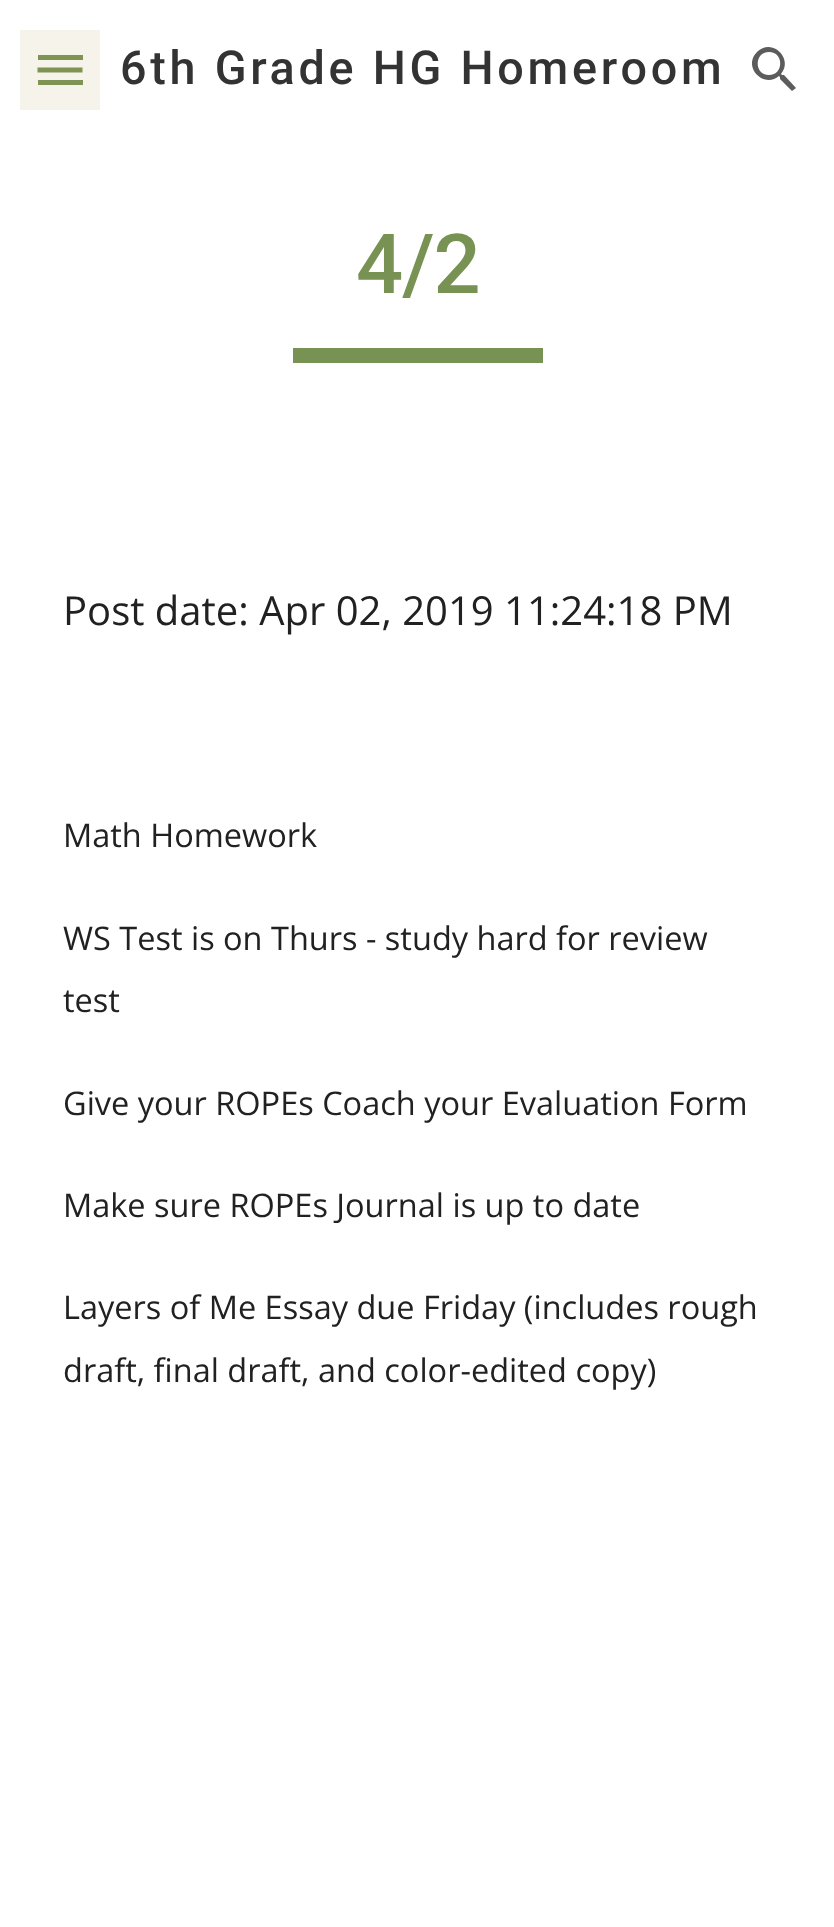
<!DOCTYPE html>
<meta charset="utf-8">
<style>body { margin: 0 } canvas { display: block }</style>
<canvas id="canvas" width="834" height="1927"></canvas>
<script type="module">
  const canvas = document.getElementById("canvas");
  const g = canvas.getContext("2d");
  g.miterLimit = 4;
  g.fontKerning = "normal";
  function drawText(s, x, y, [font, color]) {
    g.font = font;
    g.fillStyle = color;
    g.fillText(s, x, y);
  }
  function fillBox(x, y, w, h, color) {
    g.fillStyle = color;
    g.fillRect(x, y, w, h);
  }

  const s1 = ["500 46.7px Roboto", "#333333"];
  const s2 = ["500 83px Roboto", "#789254"];
  const s3 = ["40px Open Sans", "#212121"];
  const s4 = ["32.5px Open Sans", "#212121"];

  fillBox(0, 0, 834, 1927, "#FFFFFF");
  fillBox(38, 55, 45, 5, "#789254");
  g.beginPath();
  g.moveTo(37.5, 70);
  g.lineTo(82.5, 70);
  g.strokeStyle = "#789254";
  g.lineWidth = 5;
  g.stroke();
  fillBox(38, 80, 45, 5, "#789254");
  fillBox(20, 30, 80, 80, "rgba(183, 153, 81, 0.12)");
  g.letterSpacing = "3.75px";
  drawText("6th Grade HG Homeroom", 120, 84, s1);
  g.fillStyle = "#5C5C5C";
  g.beginPath();
  g.moveTo(784, 75);
  g.lineTo(782, 75);
  g.lineTo(781, 74);
  g.bezierCurveTo(794, 59, 772, 37, 757, 52);
  g.bezierCurveTo(742, 67, 764, 89, 779, 76);
  g.lineTo(780, 77);
  g.lineTo(780, 79);
  g.lineTo(792, 91);
  g.lineTo(796, 88);
  g.closePath();
  g.moveTo(769, 75);
  g.bezierCurveTo(754, 75, 754, 52, 769, 52);
  g.bezierCurveTo(784, 52, 784, 75, 769, 75);
  g.closePath();
  g.fill();
  g.letterSpacing = "-1px";
  drawText("4/2", 356, 293, s2);
  fillBox(293, 348, 250, 15, "#789254");
  g.letterSpacing = "0px";
  drawText("Post date: Apr 02, 2019 11:24:18 PM", 63, 625, s3);
  drawText("Math Homework", 63, 847, s4);
  drawText("WS Test is on Thurs - study hard for review", 63, 950, s4);
  drawText("test", 63, 1012, s4);
  drawText("Give your ROPEs Coach your Evaluation Form", 63, 1115, s4);
  drawText("Make sure ROPEs Journal is up to date", 63, 1217, s4);
  drawText("Layers of Me Essay due Friday (includes rough", 63, 1319, s4);
  drawText("draft, final draft, and color-edited copy)", 63, 1382, s4);
</script>
